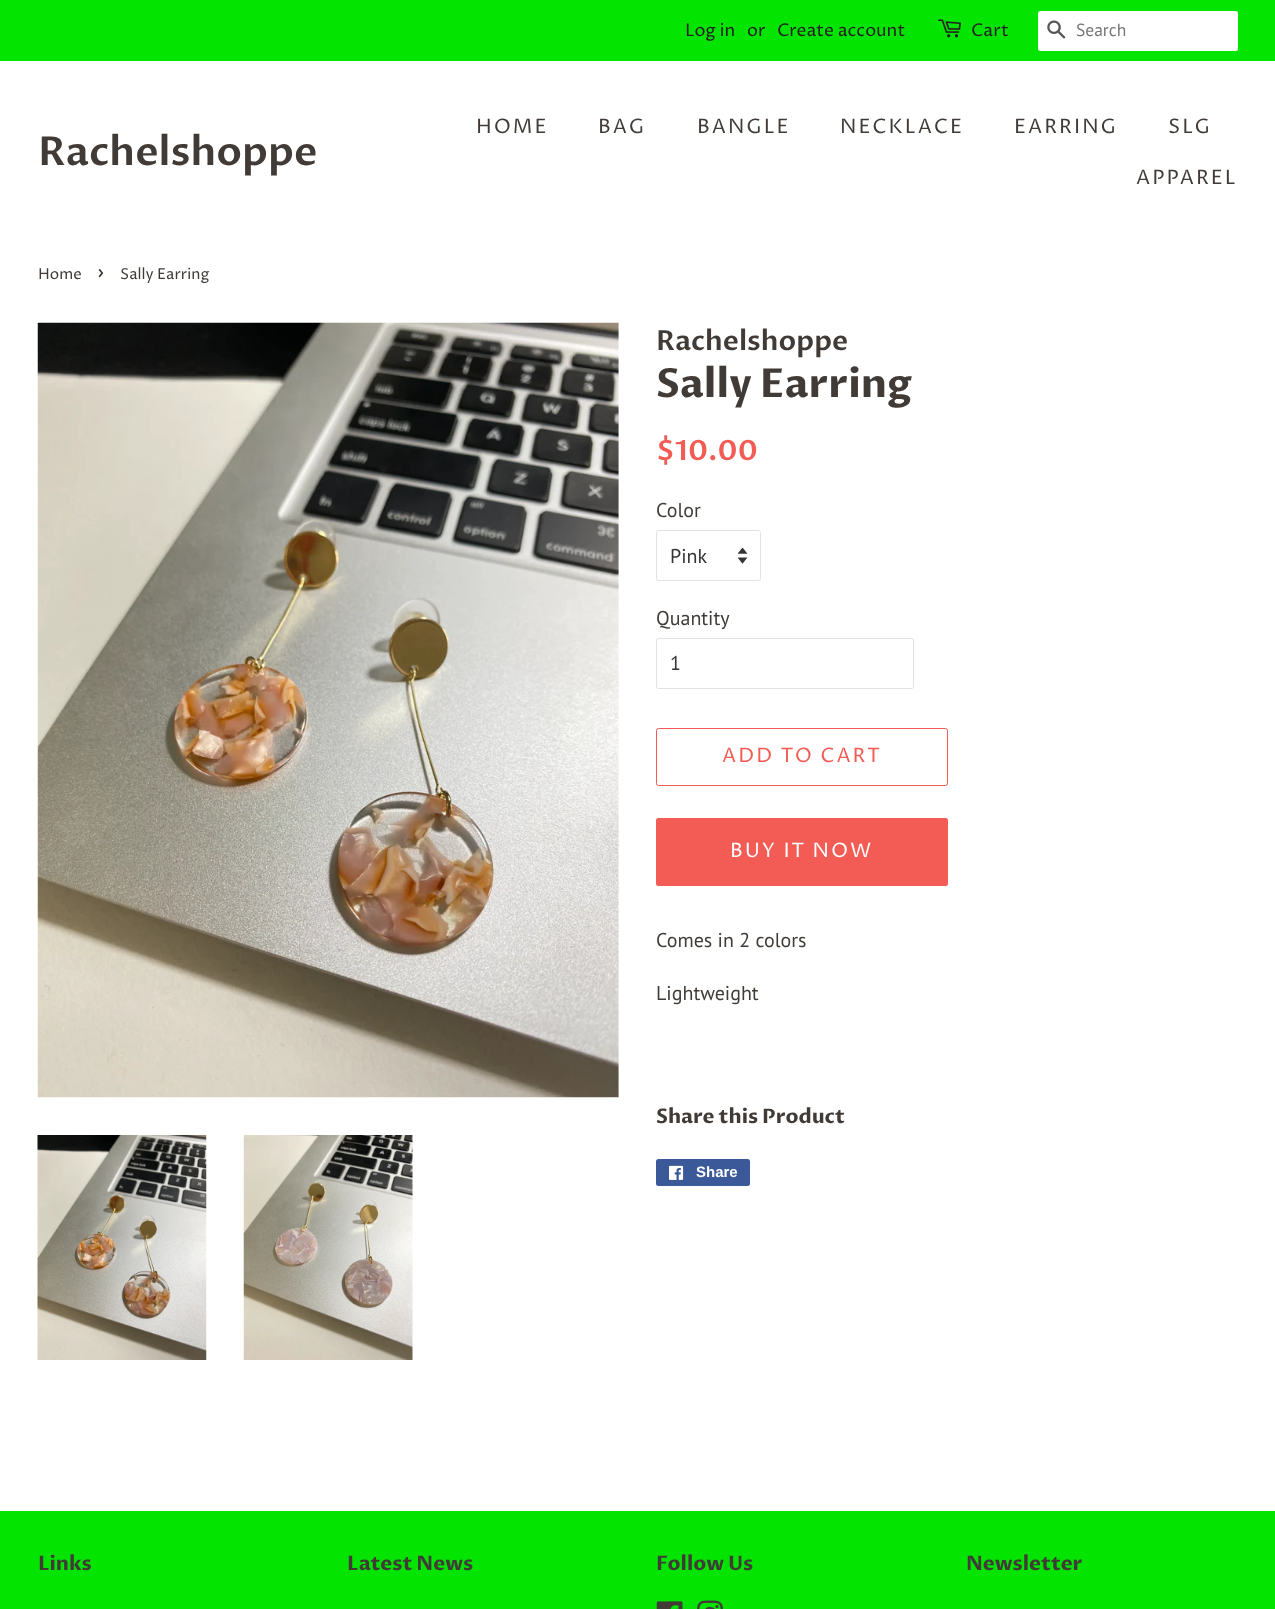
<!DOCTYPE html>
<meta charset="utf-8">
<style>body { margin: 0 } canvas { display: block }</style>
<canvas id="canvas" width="1275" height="1609"></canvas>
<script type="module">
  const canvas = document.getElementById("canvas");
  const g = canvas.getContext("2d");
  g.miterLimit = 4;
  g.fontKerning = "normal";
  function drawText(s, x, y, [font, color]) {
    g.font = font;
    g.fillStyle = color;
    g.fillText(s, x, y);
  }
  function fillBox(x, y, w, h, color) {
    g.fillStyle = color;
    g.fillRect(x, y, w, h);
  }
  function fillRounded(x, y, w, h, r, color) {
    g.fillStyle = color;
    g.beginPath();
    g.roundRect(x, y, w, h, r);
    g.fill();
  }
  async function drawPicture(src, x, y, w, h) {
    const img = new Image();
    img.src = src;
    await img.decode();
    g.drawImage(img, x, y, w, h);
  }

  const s1 = ["17.5px Proza Libre", "#242020"];
  const s2 = ["17.5px PT Sans", "#757575"];
  const s3 = ["600 40px Proza Libre", "#403B37"];
  const s4 = ["20px Proza Libre", "#403B37"];
  const s5 = ["15px Proza Libre", "#403B37"];
  const s6 = ["21px Proza Libre", "#403B37"];
  const s7 = ["600 27.5px Proza Libre", "#403B37"];
  const s8 = ["bold 40px Proza Libre", "#403B37"];
  const s9 = ["600 28px Proza Libre", "#F25C54"];
  const s10 = ["20px PT Sans", "#403B37"];
  const s11 = ["20px PT Sans", "#333333"];
  const s12 = ["20px Proza Libre", "#F25C54"];
  const s13 = ["20px Proza Libre", "#FFFFFF"];
  const s14 = ["bold 20px Proza Libre", "#403B37"];
  const s15 = ["bold 15px Liberation Sans", "#FFFFFF"];

  fillBox(0, 0, 1275, 1609, "#FFFFFF");
  fillBox(0, 0, 1275, 61, "#03E400");
  drawText("Log in", 685, 36, s1);
  drawText("or", 747, 36, s1);
  drawText("Create account", 777, 36, s1);
  await drawPicture("pic1.png", 938, 19, 23, 19);
  drawText("Cart", 971, 36, s1);
  fillRounded(1038, 11, 200, 40, 2.5, "#FFFFFF");
  await drawPicture("pic2.png", 1047, 20, 19, 19);
  drawText("Search", 1076, 36, s2);
  drawText("Rachelshoppe", 38, 165, s3);
  g.letterSpacing = "2px";
  drawText("HOME", 476, 133, s4);
  drawText("BAG", 598, 133, s4);
  drawText("BANGLE", 697, 133, s4);
  drawText("NECKLACE", 840, 133, s4);
  drawText("EARRING", 1014, 133, s4);
  drawText("SLG", 1168, 133, s4);
  drawText("APPAREL", 1136, 184, s4);
  g.letterSpacing = "0px";
  drawText("Home", 38, 279, s5);
  drawText("›", 97, 279, s6);
  drawText("Sally Earring", 120, 279, s5);
  await drawPicture("pic3.png", 37, 322, 582, 776);
  await drawPicture("pic4.png", 37, 1135, 170, 225);
  await drawPicture("pic5.png", 243, 1135, 170, 225);
  drawText("Rachelshoppe", 656, 350, s7);
  drawText("Sally Earring", 656, 397, s8);
  drawText("$10.00", 656, 460, s9);
  drawText("Color", 656, 517, s10);
  await drawPicture("pic6.png", 738, 548, 10, 16);
  g.beginPath();
  g.roundRect(656.5, 530.5, 104, 50, 2);
  g.strokeStyle = "#E2E2E1";
  g.stroke();
  drawText("Pink", 670, 563, s11);
  drawText("Quantity", 656, 625, s10);
  g.beginPath();
  g.roundRect(656.5, 638.5, 257, 50, 2);
  g.stroke();
  drawText("1", 670, 670, s11);
  g.beginPath();
  g.roundRect(656.5, 728.5, 291, 57, 2);
  g.strokeStyle = "#F25C54";
  g.stroke();
  g.letterSpacing = "2px";
  drawText("ADD TO CART", 722, 762, s12);
  fillRounded(656, 818, 292, 68, 2.5, "#F25C54");
  drawText("BUY IT NOW", 730, 857, s13);
  g.letterSpacing = "0px";
  drawText("Comes in 2 colors", 656, 947, s10);
  drawText("Lightweight", 656, 1000, s10);
  drawText("Share this Product", 656, 1123, s14);
  fillRounded(656, 1159, 94, 27, 2.5, "#3B5998");
  await drawPicture("pic7.png", 669, 1165, 15, 15);
  drawText("Share", 696, 1177, s15);
  fillBox(0, 1511, 1275, 98, "#03E400");
  drawText("Links", 38, 1570, s14);
  drawText("Latest News", 347, 1570, s14);
  drawText("Follow Us", 656, 1570, s14);
  await drawPicture("pic8.png", 656, 1601, 27, 8);
  await drawPicture("pic9.png", 697, 1600, 26, 9);
  drawText("Newsletter", 966, 1570, s14);
</script>
